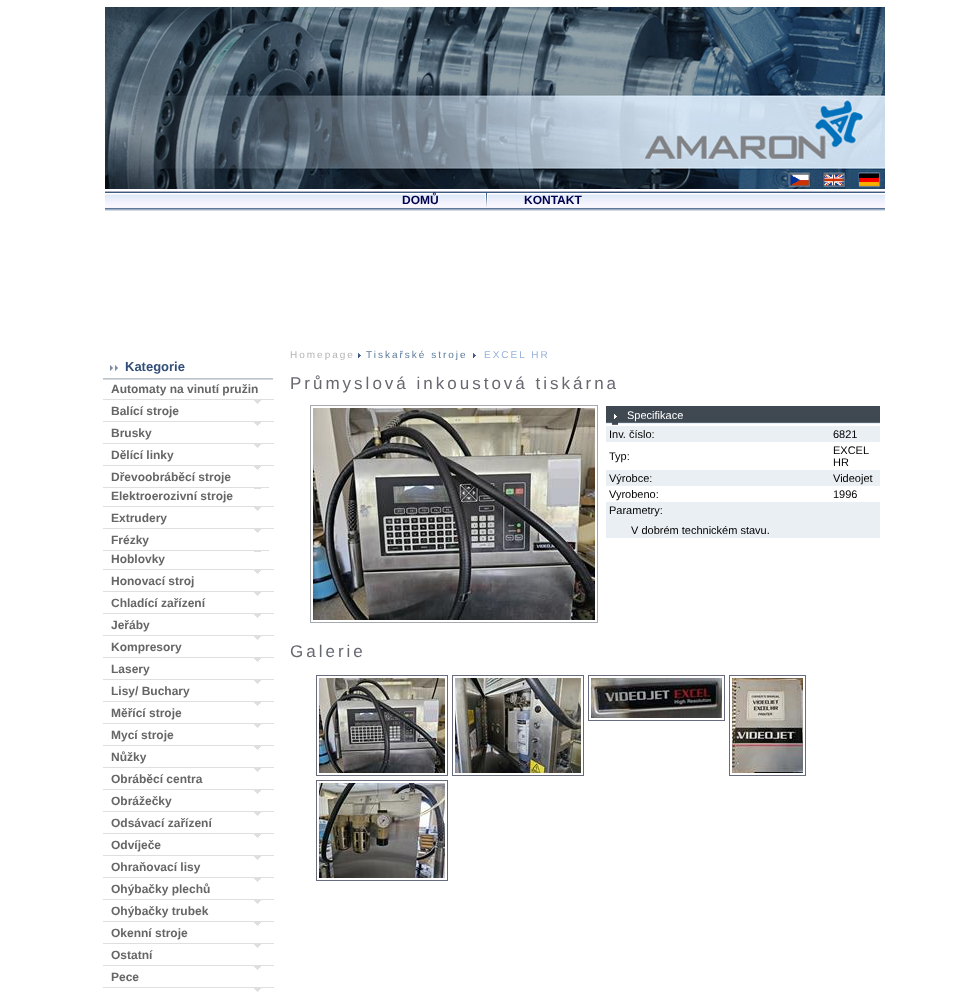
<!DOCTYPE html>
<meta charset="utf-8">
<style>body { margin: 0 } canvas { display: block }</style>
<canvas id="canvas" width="955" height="995"></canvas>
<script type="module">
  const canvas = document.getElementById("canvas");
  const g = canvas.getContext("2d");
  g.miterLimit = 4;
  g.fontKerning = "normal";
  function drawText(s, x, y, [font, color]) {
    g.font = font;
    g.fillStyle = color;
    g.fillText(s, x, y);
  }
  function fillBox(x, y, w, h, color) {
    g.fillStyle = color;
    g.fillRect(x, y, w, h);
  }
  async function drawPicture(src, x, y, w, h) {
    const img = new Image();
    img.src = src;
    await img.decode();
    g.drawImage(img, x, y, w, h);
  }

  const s1 = ["bold 12px Liberation Sans", "#00014C"];
  const s2 = ["bold 13px Liberation Sans", "#324F77"];
  const s3 = ["bold 12px Liberation Sans", "#666666"];
  const s4 = ["10px Liberation Sans", "#B5B5B5"];
  const s5 = ["10px Liberation Sans", "#5C7A9B"];
  const s6 = ["10px Liberation Sans", "#96B2DA"];
  const s7 = ["17px Liberation Sans", "#676870"];
  const s8 = ["11px Liberation Sans", "#FFFFFF"];
  const s9 = ["11px Liberation Sans", "#000000"];

  fillBox(0, 0, 955, 995, "#FFFFFF");
  await drawPicture("pic1.png", 105, 7, 780, 182);
  await drawPicture("pic2.png", 790, 174, 19, 12);
  await drawPicture("pic3.png", 824, 174, 19, 12);
  await drawPicture("pic4.png", 859, 174, 19, 12);
  await drawPicture("pic5.png", 105, 191, 780, 20);
  drawText("DOMŮ", 402, 204, s1);
  await drawPicture("pic6.png", 485, 193, 3, 14);
  drawText("KONTAKT", 524, 204, s1);
  await drawPicture("pic7.png", 110, 365, 8, 6);
  drawText("Kategorie", 125, 371, s2);
  await drawPicture("pic8.png", 103, 378, 170, 2);
  await drawPicture("pic9.png", 103, 399, 171, 5);
  drawText("Automaty na vinutí pružin", 111, 393, s3);
  await drawPicture("pic9.png", 103, 421, 171, 5);
  drawText("Balící stroje", 111, 415, s3);
  await drawPicture("pic9.png", 103, 443, 171, 5);
  drawText("Brusky", 111, 437, s3);
  await drawPicture("pic9.png", 103, 465, 171, 5);
  drawText("Dělící linky", 111, 459, s3);
  await drawPicture("pic10.png", 103, 487, 166, 2);
  drawText("Dřevoobráběcí stroje", 111, 481, s3);
  await drawPicture("pic11.png", 103, 489, 171, 22);
  drawText("Elektroerozivní stroje", 111, 500, s3);
  await drawPicture("pic9.png", 103, 528, 171, 5);
  drawText("Extrudery", 111, 522, s3);
  await drawPicture("pic10.png", 103, 550, 166, 2);
  drawText("Frézky", 111, 544, s3);
  await drawPicture("pic11.png", 103, 552, 171, 22);
  drawText("Hoblovky", 111, 563, s3);
  await drawPicture("pic9.png", 103, 591, 171, 5);
  drawText("Honovací stroj", 111, 585, s3);
  await drawPicture("pic9.png", 103, 613, 171, 5);
  drawText("Chladící zařízení", 111, 607, s3);
  await drawPicture("pic9.png", 103, 635, 171, 5);
  drawText("Jeřáby", 111, 629, s3);
  await drawPicture("pic9.png", 103, 657, 171, 5);
  drawText("Kompresory", 111, 651, s3);
  await drawPicture("pic9.png", 103, 679, 171, 5);
  drawText("Lasery", 111, 673, s3);
  await drawPicture("pic9.png", 103, 701, 171, 5);
  drawText("Lisy/ Buchary", 111, 695, s3);
  await drawPicture("pic9.png", 103, 723, 171, 5);
  drawText("Měřící stroje", 111, 717, s3);
  await drawPicture("pic9.png", 103, 745, 171, 5);
  drawText("Mycí stroje", 111, 739, s3);
  await drawPicture("pic9.png", 103, 767, 171, 5);
  drawText("Nůžky", 111, 761, s3);
  await drawPicture("pic9.png", 103, 789, 171, 5);
  drawText("Obráběcí centra", 111, 783, s3);
  await drawPicture("pic9.png", 103, 811, 171, 5);
  drawText("Obrážečky", 111, 805, s3);
  await drawPicture("pic9.png", 103, 833, 171, 5);
  drawText("Odsávací zařízení", 111, 827, s3);
  await drawPicture("pic9.png", 103, 855, 171, 5);
  drawText("Odvíječe", 111, 849, s3);
  await drawPicture("pic9.png", 103, 877, 171, 5);
  drawText("Ohraňovací lisy", 111, 871, s3);
  await drawPicture("pic9.png", 103, 899, 171, 5);
  drawText("Ohýbačky plechů", 111, 893, s3);
  await drawPicture("pic9.png", 103, 921, 171, 5);
  drawText("Ohýbačky trubek", 111, 915, s3);
  await drawPicture("pic9.png", 103, 943, 171, 5);
  drawText("Okenní stroje", 111, 937, s3);
  await drawPicture("pic9.png", 103, 965, 171, 5);
  drawText("Ostatní", 111, 959, s3);
  await drawPicture("pic9.png", 103, 987, 171, 5);
  drawText("Pece", 111, 981, s3);
  g.letterSpacing = "2px";
  drawText("Homepage", 290, 358, s4);
  await drawPicture("pic12.png", 358, 353, 3, 5);
  drawText("Tiskařské stroje", 366, 358, s5);
  await drawPicture("pic12.png", 473, 353, 3, 5);
  drawText("EXCEL HR", 484, 358, s6);
  g.letterSpacing = "3px";
  drawText("Průmyslová inkoustová tiskárna", 290, 389, s7);
  g.strokeStyle = "#A5A8AD";
  g.strokeRect(310.5, 405.5, 287, 217);
  await drawPicture("pic13.png", 313, 408, 282, 212);
  await drawPicture("pic14.png", 606, 406, 274, 18);
  await drawPicture("pic15.png", 612, 411, 6, 14);
  g.letterSpacing = "0px";
  drawText("Specifikace", 627, 419, s8);
  fillBox(606, 426, 274, 16, "#EAEFF3");
  drawText("Inv. číslo:", 609, 438, s9);
  drawText("6821", 833, 438, s9);
  drawText("Typ:", 609, 460, s9);
  drawText("EXCEL", 833, 454, s9);
  drawText("HR", 833, 466, s9);
  fillBox(606, 470, 274, 16, "#EAEFF3");
  drawText("Výrobce:", 609, 482, s9);
  drawText("Videojet", 833, 482, s9);
  drawText("Vyrobeno:", 609, 498, s9);
  drawText("1996", 833, 498, s9);
  fillBox(606, 502, 274, 16, "#EAEFF3");
  drawText("Parametry:", 609, 514, s9);
  fillBox(606, 518, 274, 4, "#EAEFF3");
  fillBox(606, 522, 274, 16, "#EAEFF3");
  drawText("V dobrém technickém stavu.", 631, 534, s9);
  g.letterSpacing = "3px";
  drawText("Galerie", 290, 657, s7);
  g.strokeStyle = "#686B7C";
  g.strokeRect(316.5, 675.5, 131, 100);
  await drawPicture("pic16.png", 319, 678, 126, 95);
  g.strokeRect(452.5, 675.5, 131, 100);
  await drawPicture("pic17.png", 455, 678, 126, 95);
  g.strokeRect(588.5, 675.5, 136, 45);
  await drawPicture("pic18.png", 591, 678, 131, 40);
  g.strokeRect(729.5, 675.5, 76, 100);
  await drawPicture("pic19.png", 732, 678, 71, 95);
  g.strokeRect(316.5, 780.5, 131, 100);
  await drawPicture("pic20.png", 319, 783, 126, 95);
</script>
